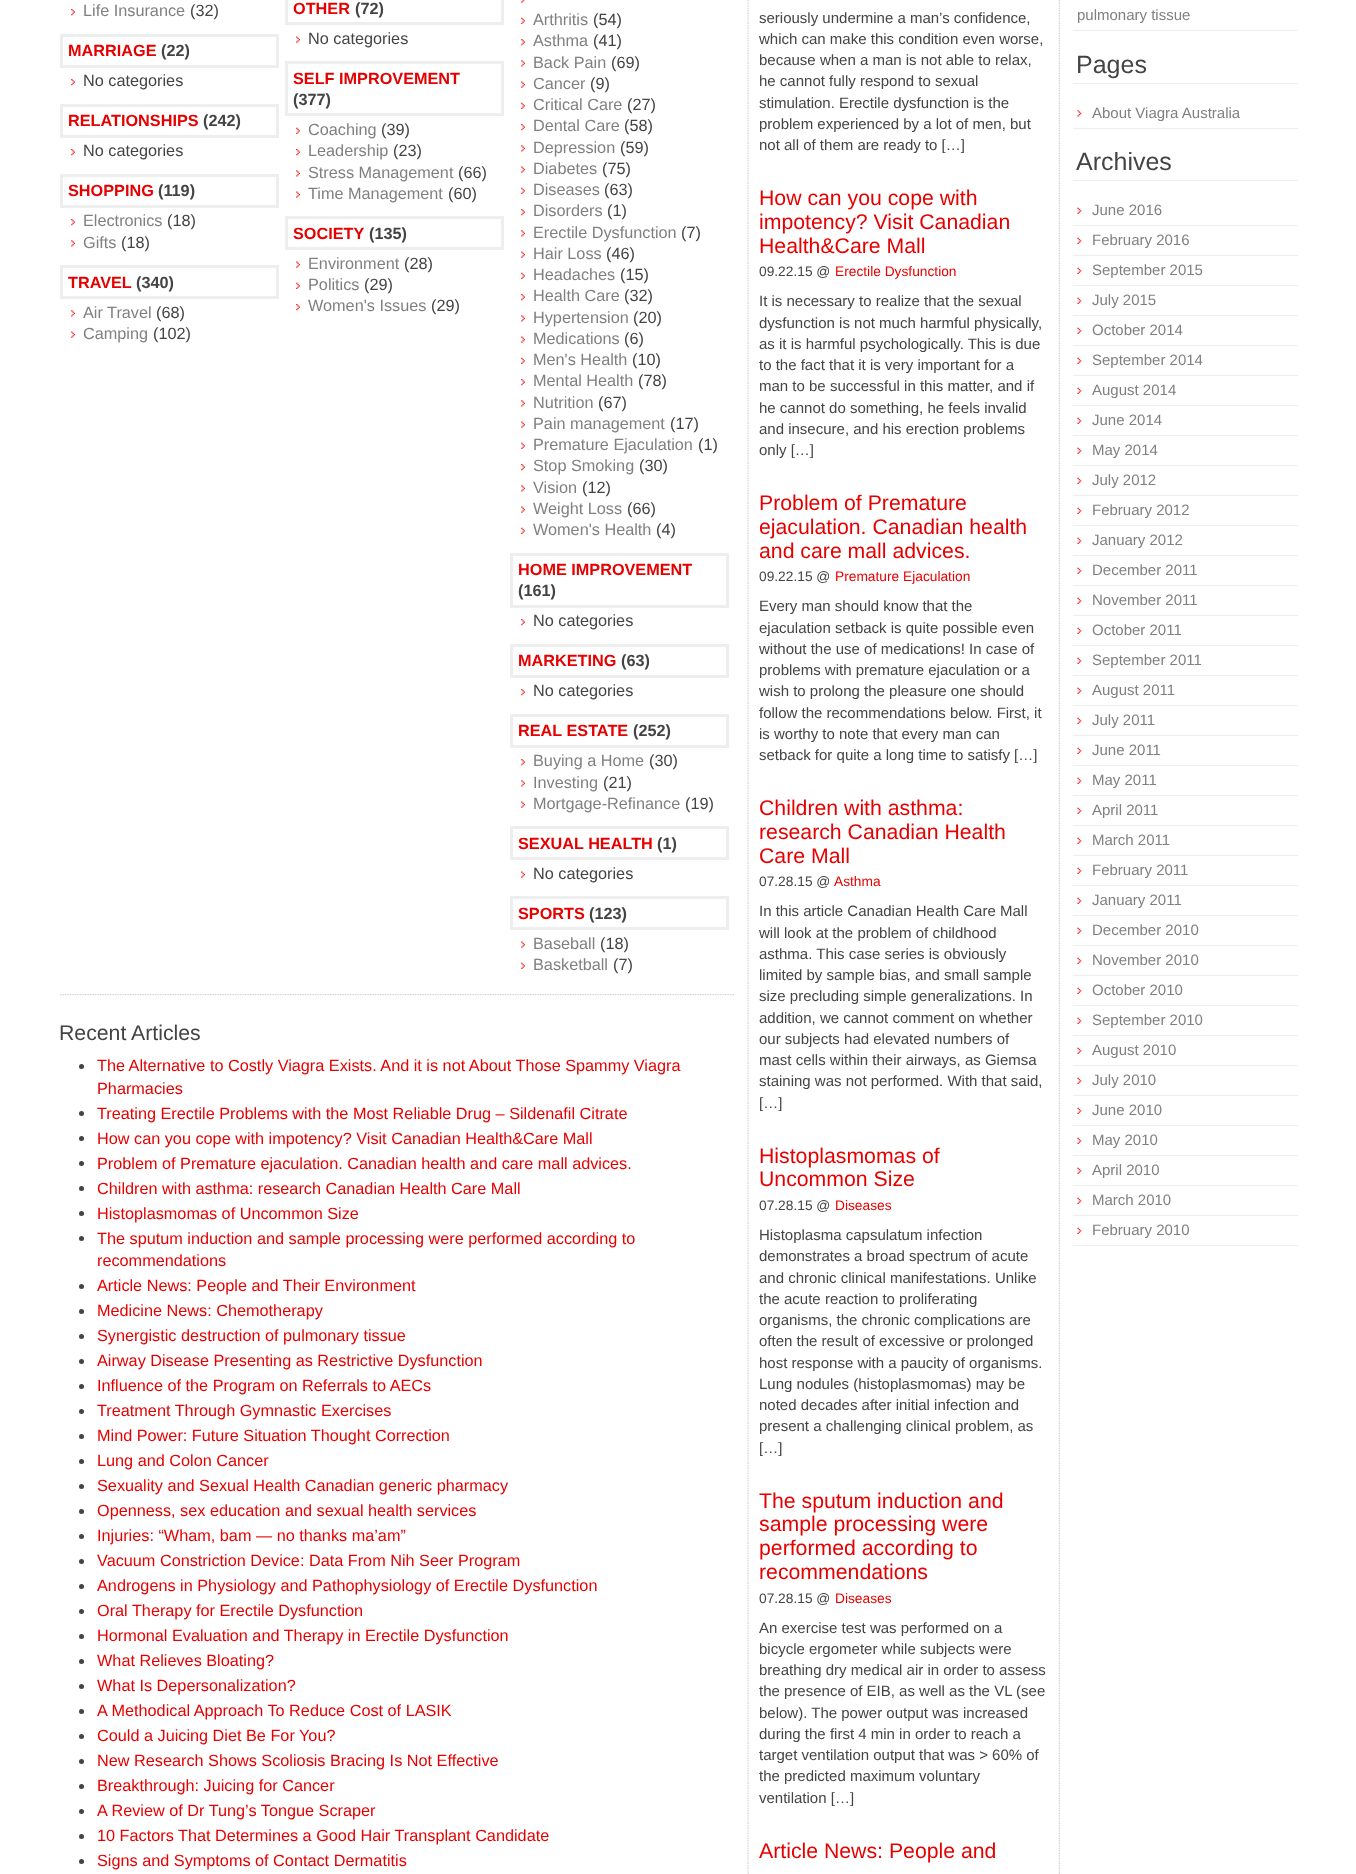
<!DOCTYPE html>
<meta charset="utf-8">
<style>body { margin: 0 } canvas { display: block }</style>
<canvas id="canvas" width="1356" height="1874"></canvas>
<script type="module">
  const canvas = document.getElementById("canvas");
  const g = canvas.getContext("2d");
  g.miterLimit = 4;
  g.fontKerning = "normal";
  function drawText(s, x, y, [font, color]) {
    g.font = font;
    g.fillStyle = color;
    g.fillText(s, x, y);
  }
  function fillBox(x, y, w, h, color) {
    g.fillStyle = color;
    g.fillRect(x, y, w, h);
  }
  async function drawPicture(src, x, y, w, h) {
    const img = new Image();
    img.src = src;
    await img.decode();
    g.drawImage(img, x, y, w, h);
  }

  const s1 = ["16.25px Liberation Sans", "#808080"];
  const s2 = ["16.25px Liberation Sans", "#444444"];
  const s3 = ["bold 16.25px Liberation Sans", "#E60000"];
  const s4 = ["bold 16.25px Liberation Sans", "#444444"];
  const s5 = ["21.25px Liberation Sans", "#444444"];
  const s6 = ["16.25px Liberation Sans", "#E60000"];
  const s7 = ["15px Liberation Sans", "#444444"];
  const s8 = ["21.25px Liberation Sans", "#E60000"];
  const s9 = ["13.75px Liberation Sans", "#444444"];
  const s10 = ["13.75px Liberation Sans", "#E60000"];
  const s11 = ["15px Liberation Sans", "#808080"];
  const s12 = ["25px Liberation Sans", "#444444"];

  fillBox(0, 0, 1356, 1874, "#FFFFFF");
  await drawPicture("pic1.png", 747, 0, 313, 1874);
  await drawPicture("pic2.png", 71, 9, 4, 7);
  drawText("Life Insurance", 83, 16, s1);
  drawText("(32)", 190, 16, s2);
  g.strokeStyle = "#EEEEEE";
  g.lineWidth = 3;
  g.strokeRect(61.5, 35.5, 216, 31);
  drawText("MARRIAGE", 68, 56, s3);
  drawText("(22)", 161, 56, s4);
  await drawPicture("pic2.png", 71, 79, 4, 7);
  drawText("No categories", 83, 86, s2);
  g.strokeRect(61.5, 105.5, 216, 31);
  drawText("RELATIONSHIPS", 68, 126, s3);
  drawText("(242)", 203, 126, s4);
  await drawPicture("pic2.png", 71, 149, 4, 7);
  drawText("No categories", 83, 156, s2);
  g.strokeRect(61.5, 175.5, 216, 31);
  drawText("SHOPPING", 68, 196, s3);
  drawText("(119)", 158, 196, s4);
  await drawPicture("pic2.png", 71, 219, 4, 7);
  drawText("Electronics", 83, 226, s1);
  drawText("(18)", 167, 226, s2);
  await drawPicture("pic3.png", 71, 240, 4, 7);
  drawText("Gifts", 83, 248, s1);
  drawText("(18)", 121, 248, s2);
  g.strokeRect(61.5, 266.5, 216, 31);
  drawText("TRAVEL", 68, 288, s3);
  drawText("(340)", 136, 288, s4);
  await drawPicture("pic3.png", 71, 310, 4, 7);
  drawText("Air Travel", 83, 318, s1);
  drawText("(68)", 156, 318, s2);
  await drawPicture("pic4.png", 71, 331, 4, 7);
  drawText("Camping", 83, 339, s1);
  drawText("(102)", 153, 339, s2);
  g.strokeRect(286.5, -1.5, 216, 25);
  drawText("OTHER", 293, 14, s3);
  drawText("(72)", 355, 14, s4);
  await drawPicture("pic4.png", 296, 36, 4, 7);
  drawText("No categories", 308, 44, s2);
  g.strokeRect(286.5, 62.5, 216, 52);
  drawText("SELF IMPROVEMENT", 293, 84, s3);
  drawText("(377)", 293, 105, s4);
  await drawPicture("pic5.png", 296, 127, 4, 7);
  drawText("Coaching", 308, 135, s1);
  drawText("(39)", 381, 135, s2);
  await drawPicture("pic2.png", 296, 149, 4, 7);
  drawText("Leadership", 308, 156, s1);
  drawText("(23)", 393, 156, s2);
  await drawPicture("pic3.png", 296, 170, 4, 7);
  drawText("Stress Management", 308, 178, s1);
  drawText("(66)", 458, 178, s2);
  await drawPicture("pic4.png", 296, 191, 4, 7);
  drawText("Time Management", 308, 199, s1);
  drawText("(60)", 448, 199, s2);
  g.strokeRect(286.5, 217.5, 216, 31);
  drawText("SOCIETY", 293, 239, s3);
  drawText("(135)", 369, 239, s4);
  await drawPicture("pic4.png", 296, 261, 4, 7);
  drawText("Environment", 308, 269, s1);
  drawText("(28)", 404, 269, s2);
  await drawPicture("pic5.png", 296, 282, 4, 7);
  drawText("Politics", 308, 290, s1);
  drawText("(29)", 364, 290, s2);
  await drawPicture("pic2.png", 296, 304, 4, 7);
  drawText("Women's Issues", 308, 311, s1);
  drawText("(29)", 431, 311, s2);
  await drawPicture("pic6.png", 521, 0, 4, 3);
  await drawPicture("pic5.png", 521, 17, 4, 7);
  drawText("Arthritis", 533, 25, s1);
  drawText("(54)", 593, 25, s2);
  await drawPicture("pic2.png", 521, 39, 4, 7);
  drawText("Asthma", 533, 46, s1);
  drawText("(41)", 593, 46, s2);
  await drawPicture("pic3.png", 521, 60, 4, 7);
  drawText("Back Pain", 533, 68, s1);
  drawText("(69)", 611, 68, s2);
  await drawPicture("pic4.png", 521, 81, 4, 7);
  drawText("Cancer", 533, 89, s1);
  drawText("(9)", 590, 89, s2);
  await drawPicture("pic5.png", 521, 102, 4, 7);
  drawText("Critical Care", 533, 110, s1);
  drawText("(27)", 627, 110, s2);
  await drawPicture("pic2.png", 521, 124, 4, 7);
  drawText("Dental Care", 533, 131, s1);
  drawText("(58)", 624, 131, s2);
  await drawPicture("pic3.png", 521, 145, 4, 7);
  drawText("Depression", 533, 153, s1);
  drawText("(59)", 620, 153, s2);
  await drawPicture("pic4.png", 521, 166, 4, 7);
  drawText("Diabetes", 533, 174, s1);
  drawText("(75)", 602, 174, s2);
  await drawPicture("pic5.png", 521, 187, 4, 7);
  drawText("Diseases", 533, 195, s1);
  drawText("(63)", 604, 195, s2);
  await drawPicture("pic2.png", 521, 209, 4, 7);
  drawText("Disorders", 533, 216, s1);
  drawText("(1)", 607, 216, s2);
  await drawPicture("pic3.png", 521, 230, 4, 7);
  drawText("Erectile Dysfunction", 533, 238, s1);
  drawText("(7)", 681, 238, s2);
  await drawPicture("pic4.png", 521, 251, 4, 7);
  drawText("Hair Loss", 533, 259, s1);
  drawText("(46)", 606, 259, s2);
  await drawPicture("pic5.png", 521, 272, 4, 7);
  drawText("Headaches", 533, 280, s1);
  drawText("(15)", 620, 280, s2);
  await drawPicture("pic2.png", 521, 294, 4, 7);
  drawText("Health Care", 533, 301, s1);
  drawText("(32)", 624, 301, s2);
  await drawPicture("pic3.png", 521, 315, 4, 7);
  drawText("Hypertension", 533, 323, s1);
  drawText("(20)", 633, 323, s2);
  await drawPicture("pic4.png", 521, 336, 4, 7);
  drawText("Medications", 533, 344, s1);
  drawText("(6)", 624, 344, s2);
  await drawPicture("pic5.png", 521, 357, 4, 7);
  drawText("Men's Health", 533, 365, s1);
  drawText("(10)", 632, 365, s2);
  await drawPicture("pic2.png", 521, 379, 4, 7);
  drawText("Mental Health", 533, 386, s1);
  drawText("(78)", 638, 386, s2);
  await drawPicture("pic3.png", 521, 400, 4, 7);
  drawText("Nutrition", 533, 408, s1);
  drawText("(67)", 598, 408, s2);
  await drawPicture("pic4.png", 521, 421, 4, 7);
  drawText("Pain management", 533, 429, s1);
  drawText("(17)", 670, 429, s2);
  await drawPicture("pic5.png", 521, 442, 4, 7);
  drawText("Premature Ejaculation", 533, 450, s1);
  drawText("(1)", 698, 450, s2);
  await drawPicture("pic2.png", 521, 464, 4, 7);
  drawText("Stop Smoking", 533, 471, s1);
  drawText("(30)", 639, 471, s2);
  await drawPicture("pic3.png", 521, 485, 4, 7);
  drawText("Vision", 533, 493, s1);
  drawText("(12)", 582, 493, s2);
  await drawPicture("pic4.png", 521, 506, 4, 7);
  drawText("Weight Loss", 533, 514, s1);
  drawText("(66)", 627, 514, s2);
  await drawPicture("pic5.png", 521, 527, 4, 7);
  drawText("Women's Health", 533, 535, s1);
  drawText("(4)", 656, 535, s2);
  g.strokeRect(511.5, 554.5, 216, 52);
  drawText("HOME IMPROVEMENT", 518, 575, s3);
  drawText("(161)", 518, 596, s4);
  await drawPicture("pic2.png", 521, 619, 4, 7);
  drawText("No categories", 533, 626, s2);
  g.strokeRect(511.5, 645.5, 216, 31);
  drawText("MARKETING", 518, 666, s3);
  drawText("(63)", 621, 666, s4);
  await drawPicture("pic2.png", 521, 689, 4, 7);
  drawText("No categories", 533, 696, s2);
  g.strokeRect(511.5, 715.5, 216, 31);
  drawText("REAL ESTATE", 518, 736, s3);
  drawText("(252)", 633, 736, s4);
  await drawPicture("pic2.png", 521, 759, 4, 7);
  drawText("Buying a Home", 533, 766, s1);
  drawText("(30)", 649, 766, s2);
  await drawPicture("pic3.png", 521, 780, 4, 7);
  drawText("Investing", 533, 788, s1);
  drawText("(21)", 603, 788, s2);
  await drawPicture("pic4.png", 521, 801, 4, 7);
  drawText("Mortgage-Refinance", 533, 809, s1);
  drawText("(19)", 685, 809, s2);
  g.strokeRect(511.5, 827.5, 216, 31);
  drawText("SEXUAL HEALTH", 518, 849, s3);
  drawText("(1)", 657, 849, s4);
  await drawPicture("pic4.png", 521, 871, 4, 7);
  drawText("No categories", 533, 879, s2);
  g.strokeRect(511.5, 897.5, 216, 31);
  drawText("SPORTS", 518, 919, s3);
  drawText("(123)", 589, 919, s4);
  await drawPicture("pic7.png", 521, 941, 4, 7);
  drawText("Baseball", 533, 949, s1);
  drawText("(18)", 600, 949, s2);
  await drawPicture("pic5.png", 521, 962, 4, 7);
  drawText("Basketball", 533, 970, s1);
  drawText("(7)", 613, 970, s2);
  await drawPicture("pic8.png", 60, 994, 675, 2);
  drawText("Recent Articles", 59, 1040, s5);
  g.beginPath();
  g.arc(81.5, 1066.5, 2.5, 0, Math.PI * 2);
  g.fill();
  drawText("The Alternative to Costly Viagra Exists. And it is not About Those Spammy Viagra", 97, 1071, s6);
  drawText("Pharmacies", 97, 1094, s6);
  g.fillStyle = "#444444";
  g.beginPath();
  g.arc(81.5, 1113.5, 2.5, 0, Math.PI * 2);
  g.fill();
  drawText("Treating Erectile Problems with the Most Reliable Drug – Sildenafil Citrate", 97, 1119, s6);
  g.fillStyle = "#444444";
  g.beginPath();
  g.arc(81.5, 1138.5, 2.5, 0, Math.PI * 2);
  g.fill();
  drawText("How can you cope with impotency? Visit Canadian Health&Care Mall", 97, 1144, s6);
  g.fillStyle = "#444444";
  g.beginPath();
  g.arc(81.5, 1163.5, 2.5, 0, Math.PI * 2);
  g.fill();
  drawText("Problem of Premature ejaculation. Canadian health and care mall advices.", 97, 1169, s6);
  g.fillStyle = "#444444";
  g.beginPath();
  g.arc(81.5, 1188.5, 2.5, 0, Math.PI * 2);
  g.fill();
  drawText("Children with asthma: research Canadian Health Care Mall", 97, 1194, s6);
  g.fillStyle = "#444444";
  g.beginPath();
  g.arc(81.5, 1213.5, 2.5, 0, Math.PI * 2);
  g.fill();
  drawText("Histoplasmomas of Uncommon Size", 97, 1219, s6);
  g.fillStyle = "#444444";
  g.beginPath();
  g.arc(81.5, 1238.5, 2.5, 0, Math.PI * 2);
  g.fill();
  drawText("The sputum induction and sample processing were performed according to", 97, 1244, s6);
  drawText("recommendations", 97, 1266, s6);
  g.fillStyle = "#444444";
  g.beginPath();
  g.arc(81.5, 1286.5, 2.5, 0, Math.PI * 2);
  g.fill();
  drawText("Article News: People and Their Environment", 97, 1291, s6);
  g.fillStyle = "#444444";
  g.beginPath();
  g.arc(81.5, 1311.5, 2.5, 0, Math.PI * 2);
  g.fill();
  drawText("Medicine News: Сhemotherapy", 97, 1316, s6);
  g.fillStyle = "#444444";
  g.beginPath();
  g.arc(81.5, 1336.5, 2.5, 0, Math.PI * 2);
  g.fill();
  drawText("Synergistic destruction of pulmonary tissue", 97, 1341, s6);
  g.fillStyle = "#444444";
  g.beginPath();
  g.arc(81.5, 1361.5, 2.5, 0, Math.PI * 2);
  g.fill();
  drawText("Airway Disease Presenting as Restrictive Dysfunction", 97, 1366, s6);
  g.fillStyle = "#444444";
  g.beginPath();
  g.arc(81.5, 1386.5, 2.5, 0, Math.PI * 2);
  g.fill();
  drawText("Influence of the Program on Referrals to AECs", 97, 1391, s6);
  g.fillStyle = "#444444";
  g.beginPath();
  g.arc(81.5, 1411.5, 2.5, 0, Math.PI * 2);
  g.fill();
  drawText("Treatment Through Gymnastic Exercises", 97, 1416, s6);
  g.fillStyle = "#444444";
  g.beginPath();
  g.arc(81.5, 1436.5, 2.5, 0, Math.PI * 2);
  g.fill();
  drawText("Mind Power: Future Situation Thought Correction", 97, 1441, s6);
  g.fillStyle = "#444444";
  g.beginPath();
  g.arc(81.5, 1461.5, 2.5, 0, Math.PI * 2);
  g.fill();
  drawText("Lung and Colon Cancer", 97, 1466, s6);
  g.fillStyle = "#444444";
  g.beginPath();
  g.arc(81.5, 1486.5, 2.5, 0, Math.PI * 2);
  g.fill();
  drawText("Sexuality and Sexual Health Canadian generic pharmacy", 97, 1491, s6);
  g.fillStyle = "#444444";
  g.beginPath();
  g.arc(81.5, 1511.5, 2.5, 0, Math.PI * 2);
  g.fill();
  drawText("Openness, sex education and sexual health services", 97, 1516, s6);
  g.fillStyle = "#444444";
  g.beginPath();
  g.arc(81.5, 1536.5, 2.5, 0, Math.PI * 2);
  g.fill();
  drawText("Injuries: “Wham, bam — no thanks ma’am”", 97, 1541, s6);
  g.fillStyle = "#444444";
  g.beginPath();
  g.arc(81.5, 1561.5, 2.5, 0, Math.PI * 2);
  g.fill();
  drawText("Vacuum Constriction Device: Data From Nih Seer Program", 97, 1566, s6);
  g.fillStyle = "#444444";
  g.beginPath();
  g.arc(81.5, 1586.5, 2.5, 0, Math.PI * 2);
  g.fill();
  drawText("Androgens in Physiology and Pathophysiology of Erectile Dysfunction", 97, 1591, s6);
  g.fillStyle = "#444444";
  g.beginPath();
  g.arc(81.5, 1611.5, 2.5, 0, Math.PI * 2);
  g.fill();
  drawText("Oral Therapy for Erectile Dysfunction", 97, 1616, s6);
  g.fillStyle = "#444444";
  g.beginPath();
  g.arc(81.5, 1636.5, 2.5, 0, Math.PI * 2);
  g.fill();
  drawText("Hormonal Evaluation and Therapy in Erectile Dysfunction", 97, 1641, s6);
  g.fillStyle = "#444444";
  g.beginPath();
  g.arc(81.5, 1661.5, 2.5, 0, Math.PI * 2);
  g.fill();
  drawText("What Relieves Bloating?", 97, 1666, s6);
  g.fillStyle = "#444444";
  g.beginPath();
  g.arc(81.5, 1686.5, 2.5, 0, Math.PI * 2);
  g.fill();
  drawText("What Is Depersonalization?", 97, 1691, s6);
  g.fillStyle = "#444444";
  g.beginPath();
  g.arc(81.5, 1711.5, 2.5, 0, Math.PI * 2);
  g.fill();
  drawText("A Methodical Approach To Reduce Cost of LASIK", 97, 1716, s6);
  g.fillStyle = "#444444";
  g.beginPath();
  g.arc(81.5, 1736.5, 2.5, 0, Math.PI * 2);
  g.fill();
  drawText("Could a Juicing Diet Be For You?", 97, 1741, s6);
  g.fillStyle = "#444444";
  g.beginPath();
  g.arc(81.5, 1761.5, 2.5, 0, Math.PI * 2);
  g.fill();
  drawText("New Research Shows Scoliosis Bracing Is Not Effective", 97, 1766, s6);
  g.fillStyle = "#444444";
  g.beginPath();
  g.arc(81.5, 1786.5, 2.5, 0, Math.PI * 2);
  g.fill();
  drawText("Breakthrough: Juicing for Cancer", 97, 1791, s6);
  g.fillStyle = "#444444";
  g.beginPath();
  g.arc(81.5, 1811.5, 2.5, 0, Math.PI * 2);
  g.fill();
  drawText("A Review of Dr Tung’s Tongue Scraper", 97, 1816, s6);
  g.fillStyle = "#444444";
  g.beginPath();
  g.arc(81.5, 1836.5, 2.5, 0, Math.PI * 2);
  g.fill();
  drawText("10 Factors That Determines a Good Hair Transplant Candidate", 97, 1841, s6);
  g.fillStyle = "#444444";
  g.beginPath();
  g.arc(81.5, 1861.5, 2.5, 0, Math.PI * 2);
  g.fill();
  drawText("Signs and Symptoms of Contact Dermatitis", 97, 1866, s6);
  drawText("seriously undermine a man’s confidence,", 759, 23, s7);
  drawText("which can make this condition even worse,", 759, 44, s7);
  drawText("because when a man is not able to relax,", 759, 65, s7);
  drawText("he cannot fully respond to sexual", 759, 86, s7);
  drawText("stimulation. Erectile dysfunction is the", 759, 108, s7);
  drawText("problem experienced by a lot of men, but", 759, 129, s7);
  drawText("not all of them are ready to […]", 759, 150, s7);
  drawText("How can you cope with", 759, 205, s8);
  drawText("impotency? Visit Canadian", 759, 229, s8);
  drawText("Health&Care Mall", 759, 253, s8);
  drawText("09.22.15 @", 759, 276, s9);
  drawText("Erectile Dysfunction", 835, 276, s10);
  drawText("It is necessary to realize that the sexual", 759, 306, s7);
  drawText("dysfunction is not much harmful physically,", 759, 328, s7);
  drawText("as it is harmful psychologically. This is due", 759, 349, s7);
  drawText("to the fact that it is very important for a", 759, 370, s7);
  drawText("man to be successful in this matter, and if", 759, 391, s7);
  drawText("he cannot do something, he feels invalid", 759, 413, s7);
  drawText("and insecure, and his erection problems", 759, 434, s7);
  drawText("only […]", 759, 455, s7);
  drawText("Problem of Premature", 759, 510, s8);
  drawText("ejaculation. Canadian health", 759, 534, s8);
  drawText("and care mall advices.", 759, 558, s8);
  drawText("09.22.15 @", 759, 581, s9);
  drawText("Premature Ejaculation", 835, 581, s10);
  drawText("Every man should know that the", 759, 611, s7);
  drawText("ejaculation setback is quite possible even", 759, 633, s7);
  drawText("without the use of medications! In case of", 759, 654, s7);
  drawText("problems with premature ejaculation or a", 759, 675, s7);
  drawText("wish to prolong the pleasure one should", 759, 696, s7);
  drawText("follow the recommendations below. First, it", 759, 718, s7);
  drawText("is worthy to note that every man can", 759, 739, s7);
  drawText("setback for quite a long time to satisfy […]", 759, 760, s7);
  drawText("Children with asthma:", 759, 815, s8);
  drawText("research Canadian Health", 759, 839, s8);
  drawText("Care Mall", 759, 863, s8);
  drawText("07.28.15 @", 759, 886, s9);
  drawText("Asthma", 834, 886, s10);
  drawText("In this article Canadian Health Care Mall", 759, 916, s7);
  drawText("will look at the problem of childhood", 759, 938, s7);
  drawText("asthma. This case series is obviously", 759, 959, s7);
  drawText("limited by sample bias, and small sample", 759, 980, s7);
  drawText("size precluding simple generalizations. In", 759, 1001, s7);
  drawText("addition, we cannot comment on whether", 759, 1023, s7);
  drawText("our subjects had elevated numbers of", 759, 1044, s7);
  drawText("mast cells within their airways, as Giemsa", 759, 1065, s7);
  drawText("staining was not performed. With that said,", 759, 1086, s7);
  drawText("[…]", 759, 1108, s7);
  drawText("Histoplasmomas of", 759, 1163, s8);
  drawText("Uncommon Size", 759, 1186, s8);
  drawText("07.28.15 @", 759, 1210, s9);
  drawText("Diseases", 835, 1210, s10);
  drawText("Histoplasma capsulatum infection", 759, 1240, s7);
  drawText("demonstrates a broad spectrum of acute", 759, 1261, s7);
  drawText("and chronic clinical manifestations. Unlike", 759, 1283, s7);
  drawText("the acute reaction to proliferating", 759, 1304, s7);
  drawText("organisms, the chronic complications are", 759, 1325, s7);
  drawText("often the result of excessive or prolonged", 759, 1346, s7);
  drawText("host response with a paucity of organisms.", 759, 1368, s7);
  drawText("Lung nodules (histoplasmomas) may be", 759, 1389, s7);
  drawText("noted decades after initial infection and", 759, 1410, s7);
  drawText("present a challenging clinical problem, as", 759, 1431, s7);
  drawText("[…]", 759, 1453, s7);
  drawText("The sputum induction and", 759, 1508, s8);
  drawText("sample processing were", 759, 1531, s8);
  drawText("performed according to", 759, 1555, s8);
  drawText("recommendations", 759, 1579, s8);
  drawText("07.28.15 @", 759, 1603, s9);
  drawText("Diseases", 835, 1603, s10);
  drawText("An exercise test was performed on a", 759, 1633, s7);
  drawText("bicycle ergometer while subjects were", 759, 1654, s7);
  drawText("breathing dry medical air in order to assess", 759, 1675, s7);
  drawText("the presence of EIB, as well as the VL (see", 759, 1696, s7);
  drawText("below). The power output was increased", 759, 1718, s7);
  drawText("during the first 4 min in order to reach a", 759, 1739, s7);
  drawText("target ventilation output that was > 60% of", 759, 1760, s7);
  drawText("the predicted maximum voluntary", 759, 1781, s7);
  drawText("ventilation […]", 759, 1803, s7);
  drawText("Article News: People and", 759, 1858, s8);
  fillBox(1073, 30, 225, 1, "#EEEEEE");
  drawText("pulmonary tissue", 1077, 20, s11);
  fillBox(1073, 83, 225, 1, "#EEEEEE");
  drawText("Pages", 1076, 73, s12);
  fillBox(1073, 128, 225, 1, "#EEEEEE");
  await drawPicture("pic9.png", 1077, 110, 5, 7);
  drawText("About Viagra Australia", 1092, 118, s11);
  fillBox(1073, 180, 225, 1, "#EEEEEE");
  drawText("Archives", 1076, 170, s12);
  fillBox(1073, 225, 225, 1, "#EEEEEE");
  await drawPicture("pic10.png", 1077, 207, 5, 7);
  drawText("June 2016", 1092, 215, s11);
  fillBox(1073, 255, 225, 1, "#EEEEEE");
  await drawPicture("pic10.png", 1077, 237, 5, 7);
  drawText("February 2016", 1092, 245, s11);
  fillBox(1073, 285, 225, 1, "#EEEEEE");
  await drawPicture("pic10.png", 1077, 267, 5, 7);
  drawText("September 2015", 1092, 275, s11);
  fillBox(1073, 315, 225, 1, "#EEEEEE");
  await drawPicture("pic10.png", 1077, 297, 5, 7);
  drawText("July 2015", 1092, 305, s11);
  fillBox(1073, 345, 225, 1, "#EEEEEE");
  await drawPicture("pic10.png", 1077, 327, 5, 7);
  drawText("October 2014", 1092, 335, s11);
  fillBox(1073, 375, 225, 1, "#EEEEEE");
  await drawPicture("pic10.png", 1077, 357, 5, 7);
  drawText("September 2014", 1092, 365, s11);
  fillBox(1073, 405, 225, 1, "#EEEEEE");
  await drawPicture("pic10.png", 1077, 387, 5, 7);
  drawText("August 2014", 1092, 395, s11);
  fillBox(1073, 435, 225, 1, "#EEEEEE");
  await drawPicture("pic10.png", 1077, 417, 5, 7);
  drawText("June 2014", 1092, 425, s11);
  fillBox(1073, 465, 225, 1, "#EEEEEE");
  await drawPicture("pic10.png", 1077, 447, 5, 7);
  drawText("May 2014", 1092, 455, s11);
  fillBox(1073, 495, 225, 1, "#EEEEEE");
  await drawPicture("pic10.png", 1077, 477, 5, 7);
  drawText("July 2012", 1092, 485, s11);
  fillBox(1073, 525, 225, 1, "#EEEEEE");
  await drawPicture("pic10.png", 1077, 507, 5, 7);
  drawText("February 2012", 1092, 515, s11);
  fillBox(1073, 555, 225, 1, "#EEEEEE");
  await drawPicture("pic10.png", 1077, 537, 5, 7);
  drawText("January 2012", 1092, 545, s11);
  fillBox(1073, 585, 225, 1, "#EEEEEE");
  await drawPicture("pic10.png", 1077, 567, 5, 7);
  drawText("December 2011", 1092, 575, s11);
  fillBox(1073, 615, 225, 1, "#EEEEEE");
  await drawPicture("pic10.png", 1077, 597, 5, 7);
  drawText("November 2011", 1092, 605, s11);
  fillBox(1073, 645, 225, 1, "#EEEEEE");
  await drawPicture("pic10.png", 1077, 627, 5, 7);
  drawText("October 2011", 1092, 635, s11);
  fillBox(1073, 675, 225, 1, "#EEEEEE");
  await drawPicture("pic10.png", 1077, 657, 5, 7);
  drawText("September 2011", 1092, 665, s11);
  fillBox(1073, 705, 225, 1, "#EEEEEE");
  await drawPicture("pic10.png", 1077, 687, 5, 7);
  drawText("August 2011", 1092, 695, s11);
  fillBox(1073, 735, 225, 1, "#EEEEEE");
  await drawPicture("pic10.png", 1077, 717, 5, 7);
  drawText("July 2011", 1092, 725, s11);
  fillBox(1073, 765, 225, 1, "#EEEEEE");
  await drawPicture("pic10.png", 1077, 747, 5, 7);
  drawText("June 2011", 1092, 755, s11);
  fillBox(1073, 795, 225, 1, "#EEEEEE");
  await drawPicture("pic10.png", 1077, 777, 5, 7);
  drawText("May 2011", 1092, 785, s11);
  fillBox(1073, 825, 225, 1, "#EEEEEE");
  await drawPicture("pic10.png", 1077, 807, 5, 7);
  drawText("April 2011", 1092, 815, s11);
  fillBox(1073, 855, 225, 1, "#EEEEEE");
  await drawPicture("pic10.png", 1077, 837, 5, 7);
  drawText("March 2011", 1092, 845, s11);
  fillBox(1073, 885, 225, 1, "#EEEEEE");
  await drawPicture("pic10.png", 1077, 867, 5, 7);
  drawText("February 2011", 1092, 875, s11);
  fillBox(1073, 915, 225, 1, "#EEEEEE");
  await drawPicture("pic10.png", 1077, 897, 5, 7);
  drawText("January 2011", 1092, 905, s11);
  fillBox(1073, 945, 225, 1, "#EEEEEE");
  await drawPicture("pic10.png", 1077, 927, 5, 7);
  drawText("December 2010", 1092, 935, s11);
  fillBox(1073, 975, 225, 1, "#EEEEEE");
  await drawPicture("pic10.png", 1077, 957, 5, 7);
  drawText("November 2010", 1092, 965, s11);
  fillBox(1073, 1005, 225, 1, "#EEEEEE");
  await drawPicture("pic10.png", 1077, 987, 5, 7);
  drawText("October 2010", 1092, 995, s11);
  fillBox(1073, 1035, 225, 1, "#EEEEEE");
  await drawPicture("pic10.png", 1077, 1017, 5, 7);
  drawText("September 2010", 1092, 1025, s11);
  fillBox(1073, 1065, 225, 1, "#EEEEEE");
  await drawPicture("pic10.png", 1077, 1047, 5, 7);
  drawText("August 2010", 1092, 1055, s11);
  fillBox(1073, 1095, 225, 1, "#EEEEEE");
  await drawPicture("pic10.png", 1077, 1077, 5, 7);
  drawText("July 2010", 1092, 1085, s11);
  fillBox(1073, 1125, 225, 1, "#EEEEEE");
  await drawPicture("pic10.png", 1077, 1107, 5, 7);
  drawText("June 2010", 1092, 1115, s11);
  fillBox(1073, 1155, 225, 1, "#EEEEEE");
  await drawPicture("pic10.png", 1077, 1137, 5, 7);
  drawText("May 2010", 1092, 1145, s11);
  fillBox(1073, 1185, 225, 1, "#EEEEEE");
  await drawPicture("pic10.png", 1077, 1167, 5, 7);
  drawText("April 2010", 1092, 1175, s11);
  fillBox(1073, 1215, 225, 1, "#EEEEEE");
  await drawPicture("pic10.png", 1077, 1197, 5, 7);
  drawText("March 2010", 1092, 1205, s11);
  fillBox(1073, 1245, 225, 1, "#EEEEEE");
  await drawPicture("pic10.png", 1077, 1227, 5, 7);
  drawText("February 2010", 1092, 1235, s11);
</script>
